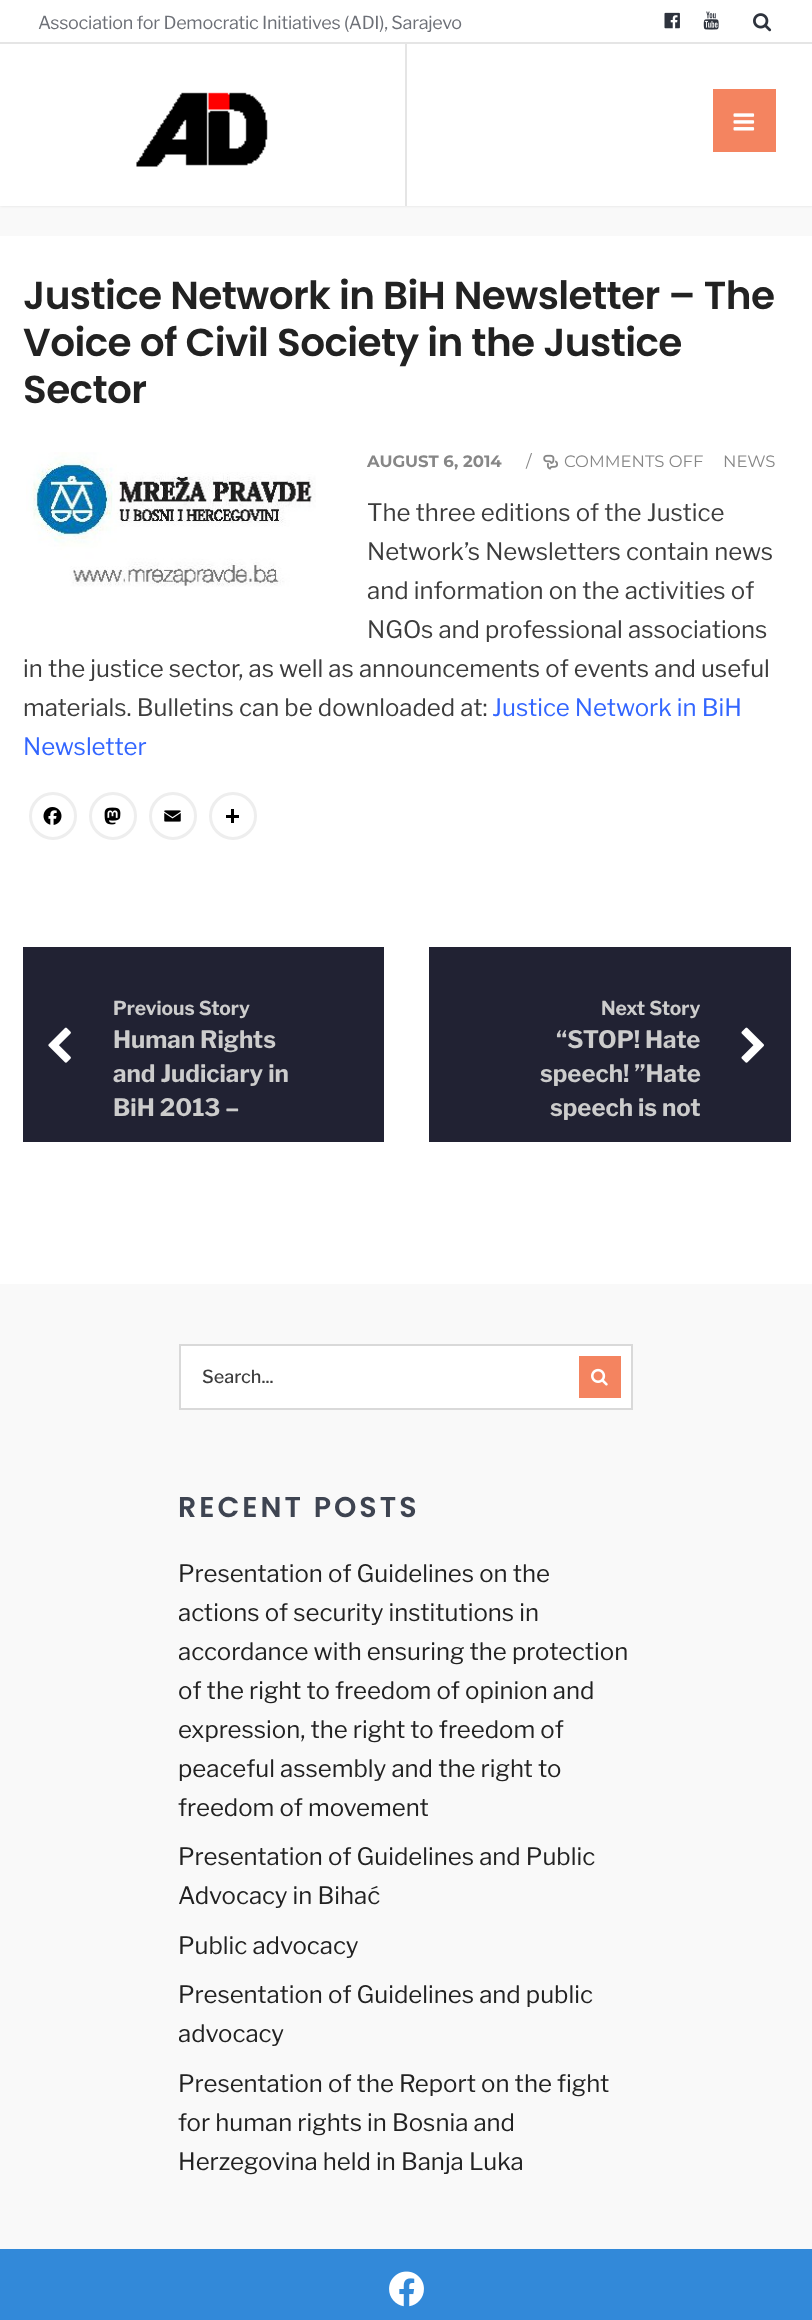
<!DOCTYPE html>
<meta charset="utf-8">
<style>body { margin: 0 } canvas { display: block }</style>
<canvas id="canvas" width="812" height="2320"></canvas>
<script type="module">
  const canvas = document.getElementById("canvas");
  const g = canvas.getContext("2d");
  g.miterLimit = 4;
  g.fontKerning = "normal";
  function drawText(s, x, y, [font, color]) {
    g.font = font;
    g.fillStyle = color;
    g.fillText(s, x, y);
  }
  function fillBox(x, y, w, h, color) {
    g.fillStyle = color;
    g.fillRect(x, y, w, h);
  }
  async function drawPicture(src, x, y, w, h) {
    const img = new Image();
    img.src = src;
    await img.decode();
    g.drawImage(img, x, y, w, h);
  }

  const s1 = ["18px Libre Franklin", "#6D7077"];
  const s2 = ["600 39px Poppins", "#222222"];
  const s3 = ["bold 16.5px Montserrat", "#878787"];
  const s4 = ["16.5px Montserrat", "#878787"];
  const s5 = ["24px Libre Franklin", "#3D3D3D"];
  const s6 = ["24px Libre Franklin", "#3366FF"];
  const s7 = ["bold 19.25px Libre Franklin", "#CCCCCC"];
  const s8 = ["bold 24px Libre Franklin", "#CCCCCC"];
  const s9 = ["500 18px Libre Franklin", "#3D3D3D"];
  const s10 = ["600 28.5px Poppins", "#3E4451"];
  const s11 = ["24px Libre Franklin", "#222222"];

  fillBox(0, 0, 812, 2320, "#F9F9F9");
  g.fillStyle = "rgba(0, 0, 0, 0.1)";
  g.filter = "blur(1.5px)";
  g.beginPath();
  g.rect(0, 0, 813, 206);
  g.fill();
  g.filter = "none";
  fillBox(0, 0, 812, 206, "#FFFFFF");
  g.letterSpacing = "-0.27px";
  drawText("Association for Democratic Initiatives (ADI), Sarajevo", 38, 29, s1);
  await drawPicture("pic1.png", 664, 12, 16, 17);
  await drawPicture("pic2.png", 703, 11, 16, 19);
  await drawPicture("pic3.png", 753, 13, 19, 19);
  fillBox(0, 42, 812, 2, "#E5E5E5");
  fillBox(405, 44, 2, 162, "#E5E5E5");
  await drawPicture("pic4.png", 136, 92, 132, 75);
  fillBox(713, 89, 63, 63, "#F48460");
  await drawPicture("pic5.png", 733, 113, 22, 18);
  fillBox(0, 236, 812, 1048, "#FFFFFF");
  g.letterSpacing = "-0.6px";
  drawText("Justice Network in BiH Newsletter – The", 23, 309, s2);
  drawText("Voice of Civil Society in the Justice", 23, 356, s2);
  drawText("Sector", 23, 403, s2);
  await drawPicture("pic6.png", 26, 452, 290, 135);
  g.letterSpacing = "0px";
  drawText("AUGUST 6, 2014", 367, 467, s3);
  drawText("/", 526, 467, s4);
  await drawPicture("pic7.png", 543, 454, 15, 16);
  drawText("COMMENTS OFF", 564, 467, s4);
  drawText("NEWS", 723, 467, s4);
  drawText("The three editions of the Justice", 367, 521, s5);
  drawText("Network’s Newsletters contain news", 367, 560, s5);
  drawText("and information on the activities of", 367, 599, s5);
  drawText("NGOs and professional associations", 367, 638, s5);
  drawText("in the justice sector, as well as announcements of events and useful", 23, 677, s5);
  drawText("materials. Bulletins can be downloaded at:", 23, 716, s5);
  drawText("Justice Network in BiH", 492, 716, s6);
  drawText("Newsletter", 23, 755, s6);
  g.beginPath();
  g.arc(53, 816, 22.5, 0, Math.PI * 2);
  g.strokeStyle = "#EEEEEE";
  g.lineWidth = 3;
  g.stroke();
  await drawPicture("pic8.png", 43, 807, 19, 18);
  g.beginPath();
  g.arc(113, 816, 22.5, 0, Math.PI * 2);
  g.stroke();
  await drawPicture("pic9.png", 104, 807, 17, 18);
  g.beginPath();
  g.arc(173, 816, 22.5, 0, Math.PI * 2);
  g.stroke();
  await drawPicture("pic10.png", 164, 810, 17, 12);
  g.beginPath();
  g.arc(233, 816, 22.5, 0, Math.PI * 2);
  g.stroke();
  fillBox(231, 809, 3, 14, "#000000");
  fillBox(226, 815, 13, 3, "#000000");
  fillBox(23, 947, 361, 195, "#212233");
  drawText("Previous Story", 113, 1015, s7);
  await drawPicture("pic11.png", 48, 1027, 23, 36);
  drawText("Human Rights", 113, 1048, s8);
  drawText("and Judiciary in", 113, 1082, s8);
  drawText("BiH 2013 –", 113, 1116, s8);
  fillBox(429, 947, 362, 195, "#212233");
  drawText("Next Story", 601, 1015, s7);
  drawText("“STOP! Hate", 556, 1048, s8);
  await drawPicture("pic12.png", 741, 1027, 23, 36);
  drawText("speech! ”Hate", 540, 1082, s8);
  drawText("speech is not", 550, 1116, s8);
  g.fillStyle = "#FFFFFF";
  g.beginPath();
  g.rect(180, 1345, 452, 64);
  g.fill();
  g.strokeStyle = "#D9D9D9";
  g.lineWidth = 2;
  g.stroke();
  drawText("Search...", 202, 1383, s9);
  fillBox(579, 1356, 42, 42, "#F48460");
  await drawPicture("pic13.png", 591, 1368, 17, 18);
  g.letterSpacing = "3px";
  drawText("RECENT POSTS", 178, 1517, s10);
  g.letterSpacing = "0px";
  drawText("Presentation of Guidelines on the", 178, 1582, s11);
  g.save();
  g.beginPath();
  g.rect(179, 1556, 457, 637);
  g.clip();
  drawText("actions of security institutions in", 178, 1621, s11);
  drawText("accordance with ensuring the protection", 178, 1660, s11);
  g.restore();
  drawText("of the right to freedom of opinion and", 178, 1699, s11);
  drawText("expression, the right to freedom of", 178, 1738, s11);
  drawText("peaceful assembly and the right to", 178, 1777, s11);
  drawText("freedom of movement", 178, 1816, s11);
  drawText("Presentation of Guidelines and Public", 178, 1865, s11);
  drawText("Advocacy in Bihać", 178, 1904, s11);
  drawText("Public advocacy", 178, 1954, s11);
  drawText("Presentation of Guidelines and public", 178, 2003, s11);
  g.save();
  g.beginPath();
  g.rect(179, 1556, 457, 637);
  g.clip();
  drawText("advocacy", 178, 2042, s11);
  g.restore();
  drawText("Presentation of the Report on the fight", 178, 2092, s11);
  drawText("for human rights in Bosnia and", 178, 2131, s11);
  drawText("Herzegovina held in Banja Luka", 178, 2170, s11);
  fillBox(0, 2249, 812, 71, "#3289D9");
  await drawPicture("pic14.png", 389, 2271, 35, 36);
</script>
